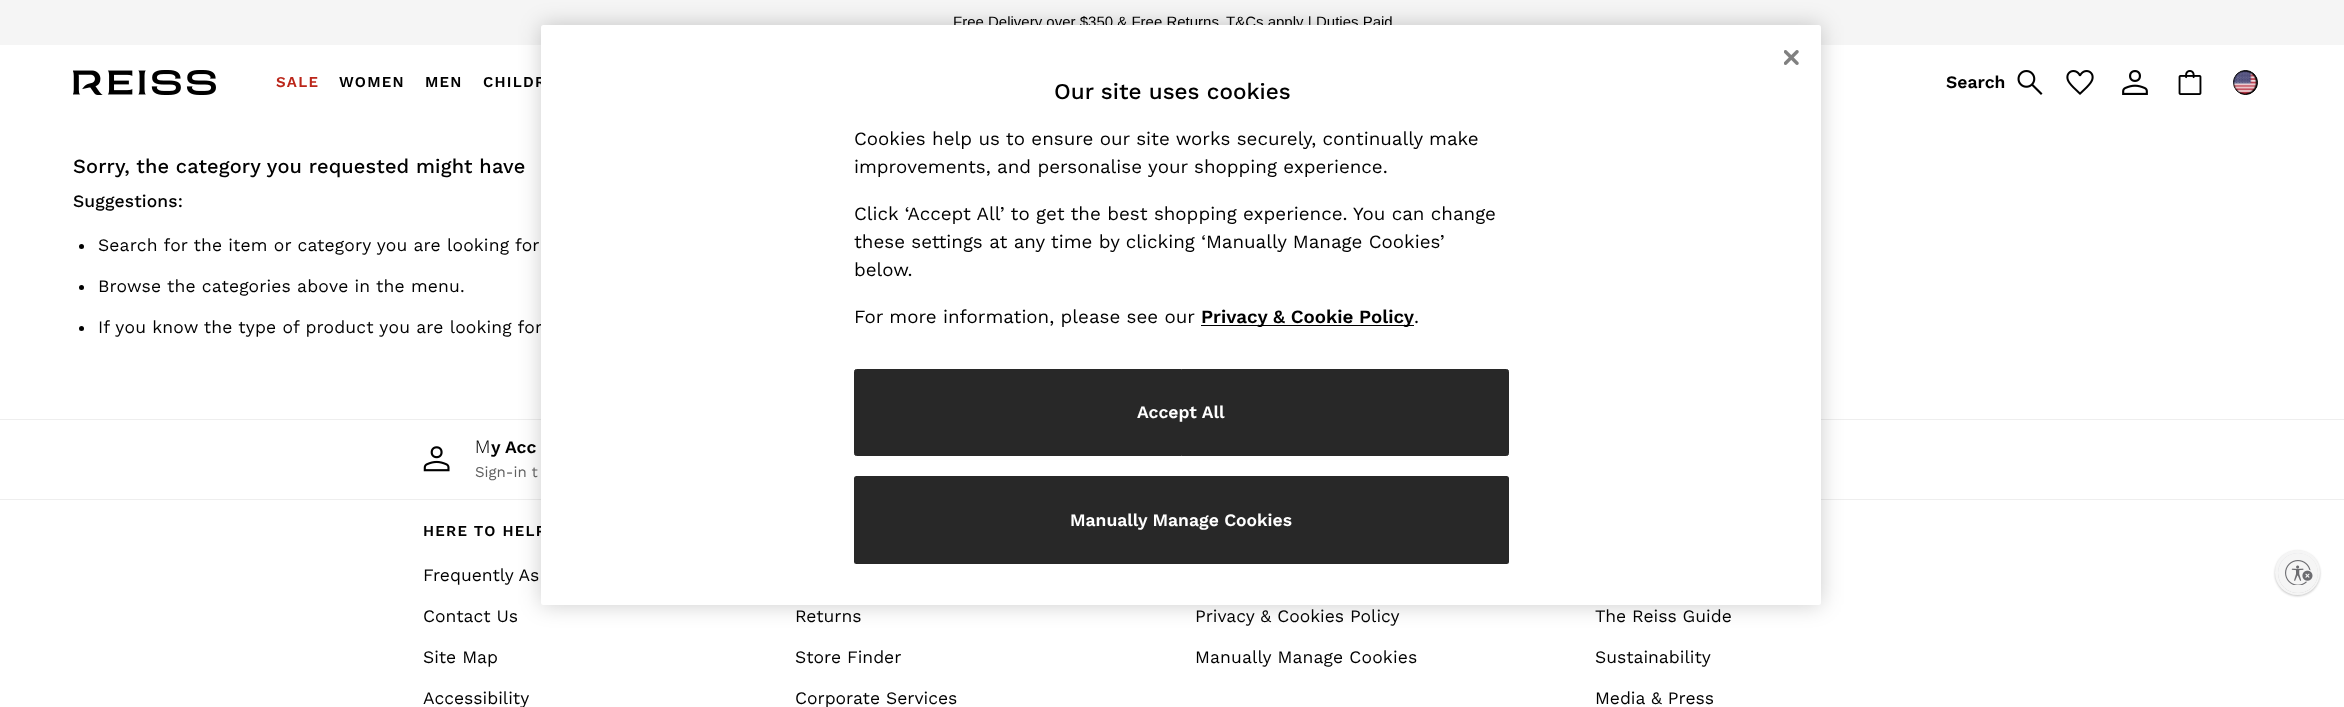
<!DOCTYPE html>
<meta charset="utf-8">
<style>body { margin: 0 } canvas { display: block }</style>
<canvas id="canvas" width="2344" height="707"></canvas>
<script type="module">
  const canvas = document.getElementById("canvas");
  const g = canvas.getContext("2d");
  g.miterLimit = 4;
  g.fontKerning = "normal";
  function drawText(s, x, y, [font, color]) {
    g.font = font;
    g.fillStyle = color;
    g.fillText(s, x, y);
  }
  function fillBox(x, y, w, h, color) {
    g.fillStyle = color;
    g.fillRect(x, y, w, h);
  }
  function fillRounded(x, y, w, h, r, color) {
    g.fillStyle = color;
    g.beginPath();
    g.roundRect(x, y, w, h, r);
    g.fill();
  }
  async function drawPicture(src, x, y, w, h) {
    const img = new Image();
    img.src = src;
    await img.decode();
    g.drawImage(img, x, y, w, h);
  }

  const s1 = ["15px Liberation Sans", "#000000"];
  const s2 = ["600 15px Work Sans", "#BB261A"];
  const s3 = ["600 15px Work Sans", "#000000"];
  const s4 = ["600 17.5px Work Sans", "#000000"];
  const s5 = ["500 20px Work Sans", "#000000"];
  const s6 = ["500 17.5px Work Sans", "#000000"];
  const s7 = ["17.5px Work Sans", "#000000"];
  const s8 = ["500 22.5px Work Sans", "#000000"];
  const s9 = ["18.75px Work Sans", "#000000"];
  const s10 = ["600 18.75px Work Sans", "#000000"];
  const s11 = ["600 17.5px Work Sans", "#FFFFFF"];
  const s12 = ["300 17.5px Noto Sans", "#000000"];
  const s13 = ["15px Work Sans", "#616161"];

  fillBox(0, 0, 2344, 707, "#FFFFFF");
  fillBox(0, 0, 2344, 45, "#F5F5F5");
  drawText("Free Delivery over $350 & Free Returns", 953, 27, s1);
  drawText("T&Cs apply |", 1226, 27, s1);
  drawText("Duties Paid", 1316, 27, s1);
  await drawPicture("pic1.png", 73, 70, 143, 25);
  g.letterSpacing = "1.25px";
  drawText("SALE", 276, 87, s2);
  drawText("WOMEN", 339, 87, s3);
  drawText("MEN", 425, 87, s3);
  drawText("CHILDR", 483, 87, s3);
  g.letterSpacing = "0px";
  drawText("Search", 1946, 88, s4);
  await drawPicture("pic2.png", 2017, 70, 26, 25);
  await drawPicture("pic3.png", 2066, 70, 28, 25);
  await drawPicture("pic4.png", 2122, 70, 26, 25);
  await drawPicture("pic5.png", 2178, 70, 24, 25);
  g.beginPath();
  g.arc(2245.5, 82.5, 12, 0, Math.PI * 2);
  g.fill();
  g.strokeStyle = "#000000";
  g.stroke();
  await drawPicture("pic6.png", 2233, 70, 24, 24);
  g.letterSpacing = "0.15px";
  drawText("Sorry, the category you requested might have", 73, 173, s5);
  drawText("Suggestions:", 73, 207, s6);
  g.beginPath();
  g.arc(81.5, 246.5, 2.5, 0, Math.PI * 2);
  g.fill();
  drawText("Search for the item or category you are looking for", 98, 251, s7);
  g.beginPath();
  g.arc(81.5, 287.5, 2.5, 0, Math.PI * 2);
  g.fill();
  drawText("Browse the categories above in the menu.", 98, 292, s7);
  g.beginPath();
  g.arc(81.5, 328.5, 2.5, 0, Math.PI * 2);
  g.fill();
  drawText("If you know the type of product you are looking for", 98, 333, s7);
  fillBox(0, 419, 2344, 1, "#EEEEEE");
  fillBox(0, 499, 2344, 1, "#EEEEEE");
  g.fillStyle = "rgba(0, 0, 0, 0.2)";
  g.filter = "blur(11px)";
  g.beginPath();
  g.roundRect(541, 25, 1280, 580, 2.5);
  g.fill();
  g.filter = "none";
  g.letterSpacing = "1.25px";
  drawText("HERE TO HELP", 423, 536, s3);
  fillRounded(541, 25, 1280, 580, 2.5, "#FFFFFF");
  await drawPicture("pic7.png", 1784, 50, 15, 15);
  g.letterSpacing = "0px";
  drawText("Our site uses cookies", 1054, 99, s8);
  drawText("Cookies help us to ensure our site works securely, continually make", 854, 145, s9);
  drawText("improvements, and personalise your shopping experience.", 854, 173, s9);
  drawText("Click ‘Accept All’ to get the best shopping experience. You can change", 854, 220, s9);
  drawText("these settings at any time by clicking ‘Manually Manage Cookies’", 854, 248, s9);
  drawText("below.", 854, 276, s9);
  drawText("For more information, please see our", 854, 323, s9);
  fillBox(1201, 325, 213, 1, "#000000");
  drawText("Privacy & Cookie Policy", 1201, 323, s10);
  drawText(".", 1414, 323, s9);
  g.fillStyle = "#282828";
  g.beginPath();
  g.roundRect(854.5, 369.5, 654, 86, 2);
  g.fill();
  g.strokeStyle = "#282828";
  g.stroke();
  drawText("Accept All", 1137, 418, s11);
  fillRounded(854, 476, 655, 88, 2.5, "#282828");
  drawText("Manually Manage Cookies", 1070, 526, s11);
  await drawPicture("pic8.png", 423, 446, 27, 26);
  drawText("M", 475, 453, s12);
  drawText("y Acc", 491, 453, s4);
  drawText("Sign-in t", 475, 477, s13);
  drawText("Frequently As", 423, 581, s7);
  drawText("Contact Us", 423, 622, s7);
  drawText("Site Map", 423, 663, s7);
  drawText("Accessibility", 423, 704, s7);
  drawText("Returns", 795, 622, s7);
  drawText("Store Finder", 795, 663, s7);
  drawText("Corporate Services", 795, 704, s7);
  drawText("Privacy & Cookies Policy", 1195, 622, s7);
  g.letterSpacing = "0.15px";
  drawText("Manually Manage Cookies", 1195, 663, s7);
  g.letterSpacing = "0px";
  drawText("The Reiss Guide", 1595, 622, s7);
  drawText("Sustainability", 1595, 663, s7);
  drawText("Media & Press", 1595, 704, s7);
  g.fillStyle = "rgba(0, 0, 0, 0.24)";
  g.filter = "blur(1px)";
  g.beginPath();
  g.roundRect(2275, 551, 45, 45, 22.5);
  g.fill();
  g.filter = "none";
  g.fillStyle = "#EBEBF0";
  g.beginPath();
  g.arc(2297.5, 572.5, 21, 0, Math.PI * 2);
  g.fill();
  g.strokeStyle = "#F5F5F5";
  g.lineWidth = 3;
  g.stroke();
  g.save();
  g.beginPath();
  g.roundRect(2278, 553, 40, 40, 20);
  g.clip();
  g.fillStyle = "rgba(0, 0, 0, 0.24)";
  g.filter = "blur(1px)";
  g.beginPath();
  g.roundRect(2278, 554, 40, 40, 20);
  g.fill();
  g.filter = "none";
  g.restore();
  g.fillStyle = "#F5F5F5";
  g.beginPath();
  g.arc(2298, 573, 20, 0, Math.PI * 2);
  g.fill();
  await drawPicture("pic9.png", 2285, 560, 28, 25);
</script>
